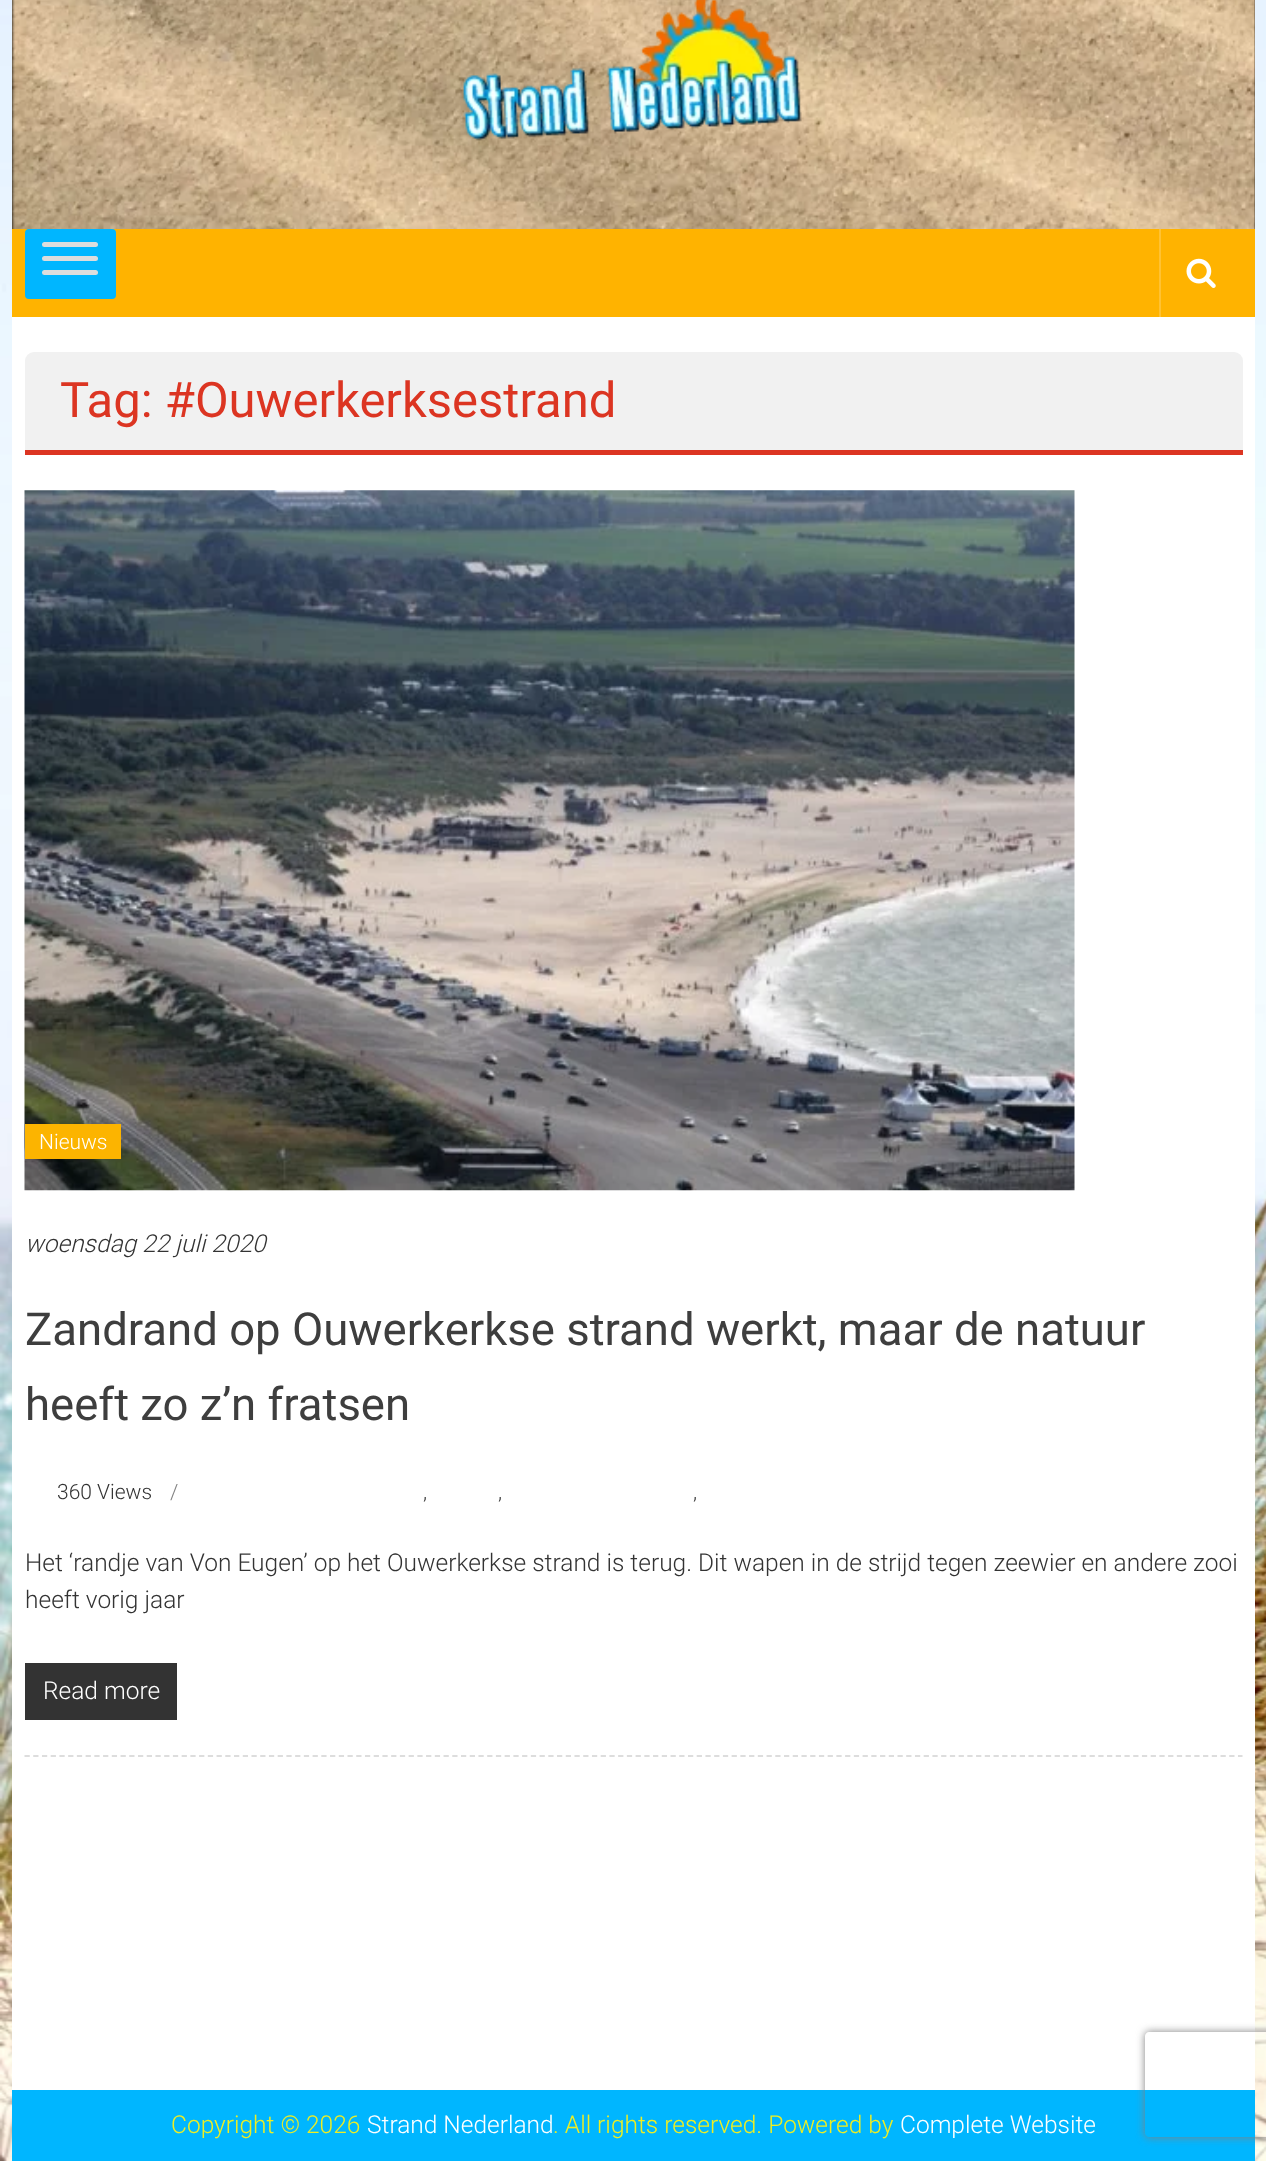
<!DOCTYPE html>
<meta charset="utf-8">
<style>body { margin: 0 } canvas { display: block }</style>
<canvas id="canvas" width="1266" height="2161"></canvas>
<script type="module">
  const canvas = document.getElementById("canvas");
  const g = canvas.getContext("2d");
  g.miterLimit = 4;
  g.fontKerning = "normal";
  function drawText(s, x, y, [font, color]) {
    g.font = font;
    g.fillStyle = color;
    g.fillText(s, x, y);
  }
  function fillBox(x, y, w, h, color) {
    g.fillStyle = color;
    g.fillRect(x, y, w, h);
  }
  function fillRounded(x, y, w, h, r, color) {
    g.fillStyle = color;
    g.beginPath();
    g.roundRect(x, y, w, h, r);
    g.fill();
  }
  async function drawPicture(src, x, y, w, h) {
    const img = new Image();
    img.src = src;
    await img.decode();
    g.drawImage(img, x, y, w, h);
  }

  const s1 = ["49px Roboto", "#DC3522"];
  const s2 = ["300 21px Roboto", "#FFFFFF"];
  const s3 = ["italic 300 24.5px Roboto", "#333333"];
  const s4 = ["45.5px Roboto", "#3E3E3E"];
  const s5 = ["300 21px Roboto", "#333333"];
  const s6 = ["300 21px Roboto", "#808080"];
  const s7 = ["300 24.5px Roboto", "#333333"];
  const s8 = ["300 24.5px Roboto", "#FFFFFF"];
  const s9 = ["300 24.5px Roboto", "#EEEE22"];

  fillBox(0, 0, 1266, 2161, "#FFFFFF");
  await drawPicture("pic1.png", 0, 0, 1266, 2161);
  fillBox(12, 317, 1243, 1773, "#FFFFFF");
  fillBox(12, 0, 1243, 229, "#000000");
  await drawPicture("pic2.png", 12, 0, 1243, 229);
  await drawPicture("pic3.png", 463, 0, 339, 141);
  fillBox(12, 229, 1243, 88, "#FFB300");
  fillRounded(25, 229, 91, 70, 4, "#00B6FF");
  fillRounded(42, 242, 56, 5, 2.5, "#DDDDDD");
  fillRounded(42, 256, 56, 5, 2.5, "#DDDDDD");
  fillRounded(42, 270, 56, 5, 2.5, "#DDDDDD");
  fillBox(1159, 229, 2, 88, "#FFC233");
  await drawPicture("pic4.png", 1186, 258, 30, 30);
  g.fillStyle = "#F1F1F1";
  g.beginPath();
  g.roundRect(25, 352, 1218, 103, [9, 9, 0, 0]);
  g.fill();
  fillBox(25, 450, 1218, 5, "#DC3522");
  drawText("Tag: #Ouwerkerksestrand", 60, 417, s1);
  g.beginPath();
  g.moveTo(24.5, 1756);
  g.lineTo(1242.5, 1756);
  g.strokeStyle = "#DDDDDD";
  g.lineWidth = 1.8;
  g.setLineDash([5.25, 3.48]);
  g.stroke();
  await drawPicture("pic5.png", 24, 490, 1051, 701);
  fillBox(25, 1124, 96, 35, "#FCB400");
  drawText("Nieuws", 39, 1149, s2);
  drawText("woensdag 22 juli 2020", 25, 1252, s3);
  drawText("Zandrand op Ouwerkerkse strand werkt, maar de natuur", 25, 1345, s4);
  drawText("heeft zo z’n fratsen", 25, 1420, s4);
  drawText("360 Views", 57, 1499, s5);
  drawText("/", 170, 1499, s6);
  drawText(",", 423, 1499, s5);
  drawText(",", 498, 1499, s5);
  drawText(",", 693, 1499, s5);
  drawText("Het ‘randje van Von Eugen’ op het Ouwerkerkse strand is terug. Dit wapen in de strijd tegen zeewier en andere zooi", 25, 1571, s7);
  drawText("heeft vorig jaar", 25, 1608, s7);
  fillBox(25, 1663, 152, 57, "#333333");
  drawText("Read more", 43, 1699, s8);
  fillBox(12, 2090, 1243, 71, "#00B6FF");
  drawText("Copyright © 2026", 171, 2133, s9);
  drawText("Strand Nederland", 367, 2133, s8);
  drawText(". All rights reserved. Powered by", 553, 2133, s9);
  drawText("Complete Website", 900, 2133, s8);
  g.save();
  g.beginPath();
  g.moveTo(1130, 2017);
  g.lineTo(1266, 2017);
  g.lineTo(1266, 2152);
  g.lineTo(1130, 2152);
  g.closePath();
  g.moveTo(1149, 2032);
  g.lineTo(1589, 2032);
  g.bezierCurveTo(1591, 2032, 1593, 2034, 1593, 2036);
  g.lineTo(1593, 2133);
  g.bezierCurveTo(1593, 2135, 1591, 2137, 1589, 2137);
  g.lineTo(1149, 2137);
  g.bezierCurveTo(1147, 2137, 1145, 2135, 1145, 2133);
  g.lineTo(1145, 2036);
  g.bezierCurveTo(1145, 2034, 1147, 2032, 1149, 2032);
  g.closePath();
  g.clip("evenodd");
  g.fillStyle = "#808080";
  g.filter = "blur(4.5px)";
  g.beginPath();
  g.roundRect(1145, 2032, 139, 105, 4);
  g.fill();
  g.filter = "none";
  g.restore();
</script>
